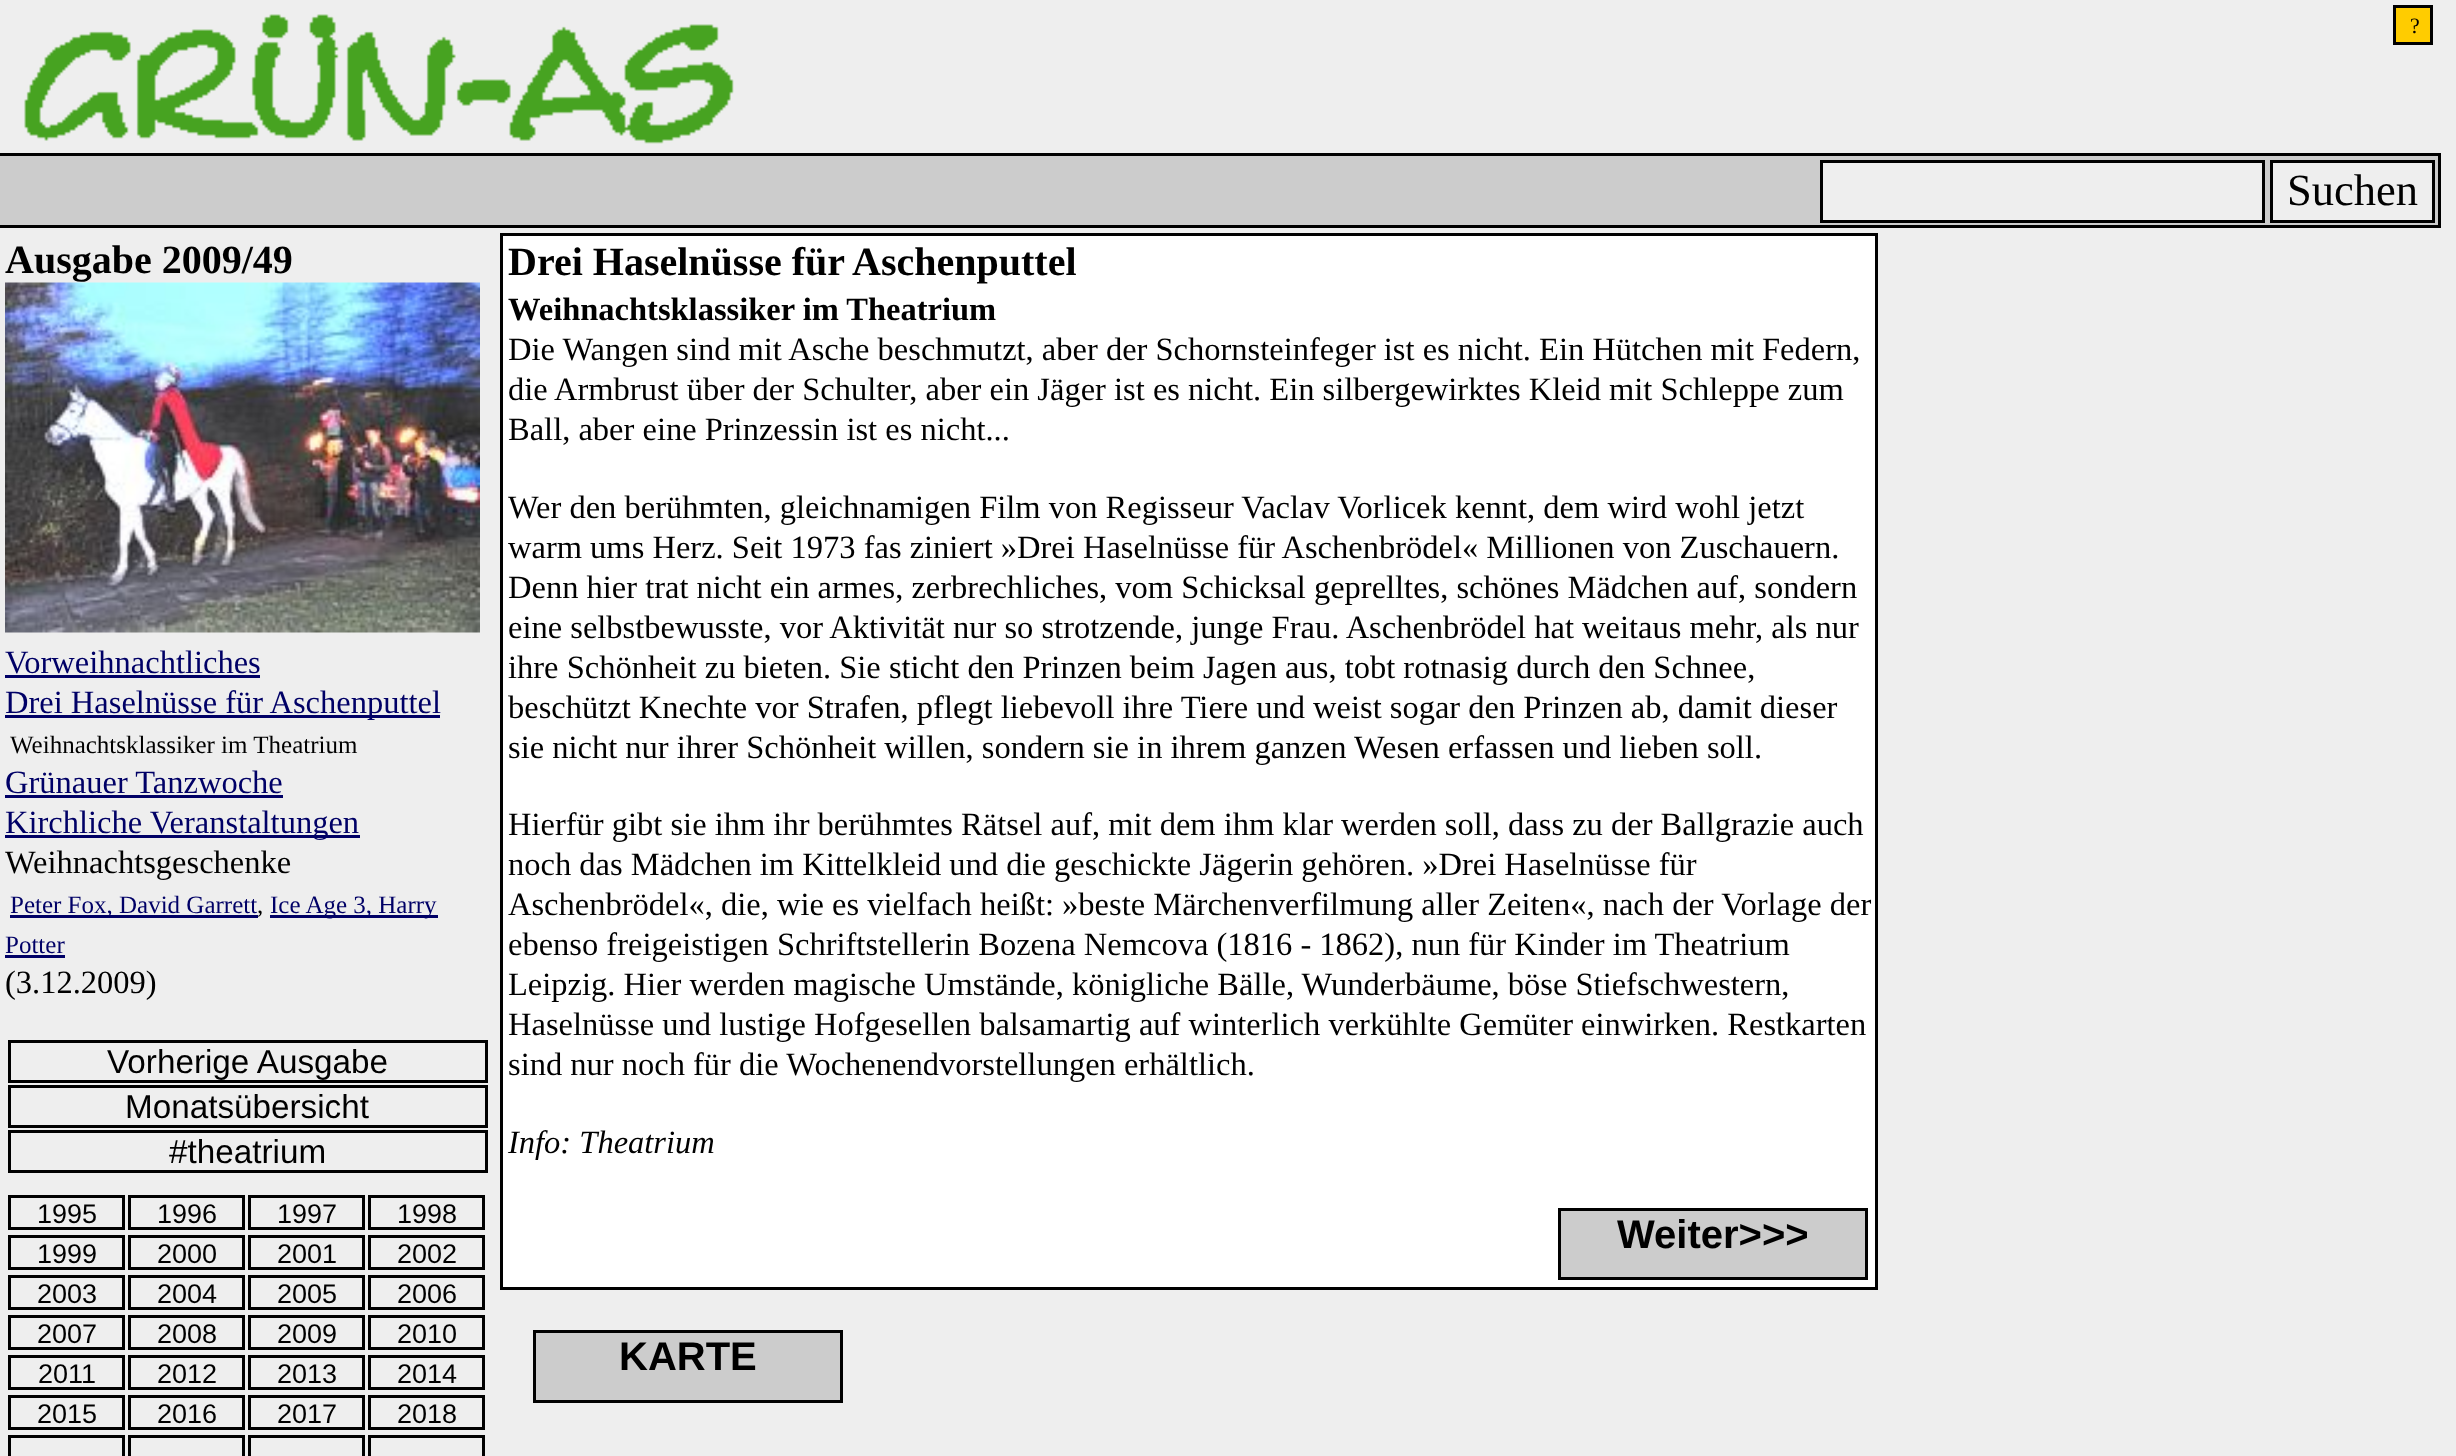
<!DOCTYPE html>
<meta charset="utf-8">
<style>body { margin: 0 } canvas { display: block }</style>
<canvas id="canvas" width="2456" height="1456"></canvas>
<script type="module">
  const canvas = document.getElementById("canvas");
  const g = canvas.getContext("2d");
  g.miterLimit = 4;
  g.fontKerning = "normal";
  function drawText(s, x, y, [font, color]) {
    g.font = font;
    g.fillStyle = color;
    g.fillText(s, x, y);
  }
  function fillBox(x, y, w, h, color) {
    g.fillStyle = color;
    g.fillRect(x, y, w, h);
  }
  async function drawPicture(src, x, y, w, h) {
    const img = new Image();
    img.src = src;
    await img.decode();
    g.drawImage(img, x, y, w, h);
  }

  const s1 = ["22px Liberation Serif", "#000000"];
  const s2 = ["44.5px Liberation Serif", "#000000"];
  const s3 = ["bold 40px Liberation Serif", "#000000"];
  const s4 = ["32.5px Liberation Serif", "#000066"];
  const s5 = ["25px Liberation Serif", "#000000"];
  const s6 = ["32.5px Liberation Serif", "#000000"];
  const s7 = ["25px Liberation Serif", "#000066"];
  const s8 = ["33.25px Liberation Sans", "#000000"];
  const s9 = ["27px Liberation Sans", "#000000"];
  const s10 = ["bold 32.5px Liberation Serif", "#000000"];
  const s11 = ["italic 32.5px Liberation Serif", "#000000"];
  const s12 = ["bold 40px Liberation Sans", "#000000"];

  fillBox(0, 0, 2456, 1456, "#EEEEEE");
  await drawPicture("pic1.png", 24, 14, 710, 130);
  g.fillStyle = "#FFCC00";
  g.beginPath();
  g.rect(2394.5, 6.5, 37, 37);
  g.fill();
  g.strokeStyle = "#000000";
  g.lineWidth = 3;
  g.stroke();
  drawText("?", 2410, 33, s1);
  fillBox(0, 156, 2438, 69, "#CCCCCC");
  fillBox(0, 153, 2440, 3, "#000000");
  fillBox(2438, 153, 3, 75, "#000000");
  fillBox(0, 225, 2440, 3, "#000000");
  g.fillStyle = "#EEEEEE";
  g.beginPath();
  g.rect(1821.5, 161.5, 442, 60);
  g.fill();
  g.stroke();
  g.beginPath();
  g.rect(2271.5, 161.5, 162, 60);
  g.fill();
  g.stroke();
  drawText("Suchen", 2287, 205, s2);
  drawText("Ausgabe 2009/49", 5, 273, s3);
  await drawPicture("pic2.png", 5, 282, 475, 351);
  drawText("Vorweihnachtliches", 5, 673, s4);
  fillBox(5, 675, 255, 3, "#000066");
  fillBox(5, 715, 435, 3, "#000066");
  drawText("Drei Haselnüsse für Aschenputtel", 5, 713, s4);
  drawText("Weihnachtsklassiker im Theatrium", 10, 753, s5);
  drawText("Grünauer Tanzwoche", 5, 793, s4);
  fillBox(5, 795, 278, 3, "#000066");
  fillBox(5, 835, 355, 3, "#000066");
  drawText("Kirchliche Veranstaltungen", 5, 833, s4);
  drawText("Weihnachtsgeschenke", 5, 873, s6);
  fillBox(10, 915, 248, 3, "#000066");
  drawText("Peter Fox, David Garrett", 10, 913, s7);
  drawText(",", 257, 913, s5);
  fillBox(270, 915, 168, 3, "#000066");
  drawText("Ice Age 3, Harry", 270, 913, s7);
  drawText("Potter", 5, 953, s7);
  fillBox(5, 955, 60, 3, "#000066");
  drawText("(3.12.2009)", 5, 993, s6);
  g.strokeRect(9.5, 1041.5, 477, 40);
  drawText("Vorherige Ausgabe", 107, 1073, s8);
  g.strokeRect(9.5, 1086.5, 477, 40);
  drawText("Monatsübersicht", 125, 1118, s8);
  g.strokeRect(9.5, 1131.5, 477, 40);
  drawText("#theatrium", 169, 1163, s8);
  g.strokeRect(9.5, 1196.5, 114, 32);
  drawText("1995", 37, 1223, s9);
  g.strokeRect(129.5, 1196.5, 114, 32);
  drawText("1996", 157, 1223, s9);
  g.strokeRect(249.5, 1196.5, 114, 32);
  drawText("1997", 277, 1223, s9);
  g.strokeRect(369.5, 1196.5, 114, 32);
  drawText("1998", 397, 1223, s9);
  g.strokeRect(9.5, 1236.5, 114, 32);
  drawText("1999", 37, 1263, s9);
  g.strokeRect(129.5, 1236.5, 114, 32);
  drawText("2000", 157, 1263, s9);
  g.strokeRect(249.5, 1236.5, 114, 32);
  drawText("2001", 277, 1263, s9);
  g.strokeRect(369.5, 1236.5, 114, 32);
  drawText("2002", 397, 1263, s9);
  g.strokeRect(9.5, 1276.5, 114, 32);
  drawText("2003", 37, 1303, s9);
  g.strokeRect(129.5, 1276.5, 114, 32);
  drawText("2004", 157, 1303, s9);
  g.strokeRect(249.5, 1276.5, 114, 32);
  drawText("2005", 277, 1303, s9);
  g.strokeRect(369.5, 1276.5, 114, 32);
  drawText("2006", 397, 1303, s9);
  g.strokeRect(9.5, 1316.5, 114, 32);
  drawText("2007", 37, 1343, s9);
  g.strokeRect(129.5, 1316.5, 114, 32);
  drawText("2008", 157, 1343, s9);
  g.strokeRect(249.5, 1316.5, 114, 32);
  drawText("2009", 277, 1343, s9);
  g.strokeRect(369.5, 1316.5, 114, 32);
  drawText("2010", 397, 1343, s9);
  g.strokeRect(9.5, 1356.5, 114, 32);
  drawText("2011", 38, 1383, s9);
  g.strokeRect(129.5, 1356.5, 114, 32);
  drawText("2012", 157, 1383, s9);
  g.strokeRect(249.5, 1356.5, 114, 32);
  drawText("2013", 277, 1383, s9);
  g.strokeRect(369.5, 1356.5, 114, 32);
  drawText("2014", 397, 1383, s9);
  g.strokeRect(9.5, 1396.5, 114, 32);
  drawText("2015", 37, 1423, s9);
  g.strokeRect(129.5, 1396.5, 114, 32);
  drawText("2016", 157, 1423, s9);
  g.strokeRect(249.5, 1396.5, 114, 32);
  drawText("2017", 277, 1423, s9);
  g.strokeRect(369.5, 1396.5, 114, 32);
  drawText("2018", 397, 1423, s9);
  g.strokeRect(9.5, 1436.5, 114, 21);
  g.strokeRect(129.5, 1436.5, 114, 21);
  g.strokeRect(249.5, 1436.5, 114, 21);
  g.strokeRect(369.5, 1436.5, 114, 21);
  g.fillStyle = "#FFFFFF";
  g.beginPath();
  g.rect(501.5, 234.5, 1375, 1054);
  g.fill();
  g.stroke();
  drawText("Drei Haselnüsse für Aschenputtel", 508, 275, s3);
  drawText("Weihnachtsklassiker im Theatrium", 508, 320, s10);
  drawText("Die Wangen sind mit Asche beschmutzt, aber der Schornsteinfeger ist es nicht. Ein Hütchen mit Federn,", 508, 360, s6);
  drawText("die Armbrust über der Schulter, aber ein Jäger ist es nicht. Ein silbergewirktes Kleid mit Schleppe zum", 508, 400, s6);
  drawText("Ball, aber eine Prinzessin ist es nicht...", 508, 440, s6);
  drawText("Wer den berühmten, gleichnamigen Film von Regisseur Vaclav Vorlicek kennt, dem wird wohl jetzt", 508, 518, s6);
  drawText("warm ums Herz. Seit 1973 fas ziniert »Drei Haselnüsse für Aschenbrödel« Millionen von Zuschauern.", 508, 558, s6);
  drawText("Denn hier trat nicht ein armes, zerbrechliches, vom Schicksal geprelltes, schönes Mädchen auf, sondern", 508, 598, s6);
  drawText("eine selbstbewusste, vor Aktivität nur so strotzende, junge Frau. Aschenbrödel hat weitaus mehr, als nur", 508, 638, s6);
  drawText("ihre Schönheit zu bieten. Sie sticht den Prinzen beim Jagen aus, tobt rotnasig durch den Schnee,", 508, 678, s6);
  drawText("beschützt Knechte vor Strafen, pflegt liebevoll ihre Tiere und weist sogar den Prinzen ab, damit dieser", 508, 718, s6);
  drawText("sie nicht nur ihrer Schönheit willen, sondern sie in ihrem ganzen Wesen erfassen und lieben soll.", 508, 758, s6);
  drawText("Hierfür gibt sie ihm ihr berühmtes Rätsel auf, mit dem ihm klar werden soll, dass zu der Ballgrazie auch", 508, 835, s6);
  drawText("noch das Mädchen im Kittelkleid und die geschickte Jägerin gehören. »Drei Haselnüsse für", 508, 875, s6);
  drawText("Aschenbrödel«, die, wie es vielfach heißt: »beste Märchenverfilmung aller Zeiten«, nach der Vorlage der", 508, 915, s6);
  drawText("ebenso freigeistigen Schriftstellerin Bozena Nemcova (1816 - 1862), nun für Kinder im Theatrium", 508, 955, s6);
  drawText("Leipzig. Hier werden magische Umstände, königliche Bälle, Wunderbäume, böse Stiefschwestern,", 508, 995, s6);
  drawText("Haselnüsse und lustige Hofgesellen balsamartig auf winterlich verkühlte Gemüter einwirken. Restkarten", 508, 1035, s6);
  drawText("sind nur noch für die Wochenendvorstellungen erhältlich.", 508, 1075, s6);
  drawText("Info: Theatrium", 508, 1153, s11);
  g.fillStyle = "#CCCCCC";
  g.beginPath();
  g.rect(1559.5, 1209.5, 307, 69);
  g.fill();
  g.stroke();
  drawText("Weiter>>>", 1617, 1248, s12);
  g.fillStyle = "#CCCCCC";
  g.beginPath();
  g.rect(534.5, 1331.5, 307, 70);
  g.fill();
  g.stroke();
  drawText("KARTE", 619, 1370, s12);
</script>
